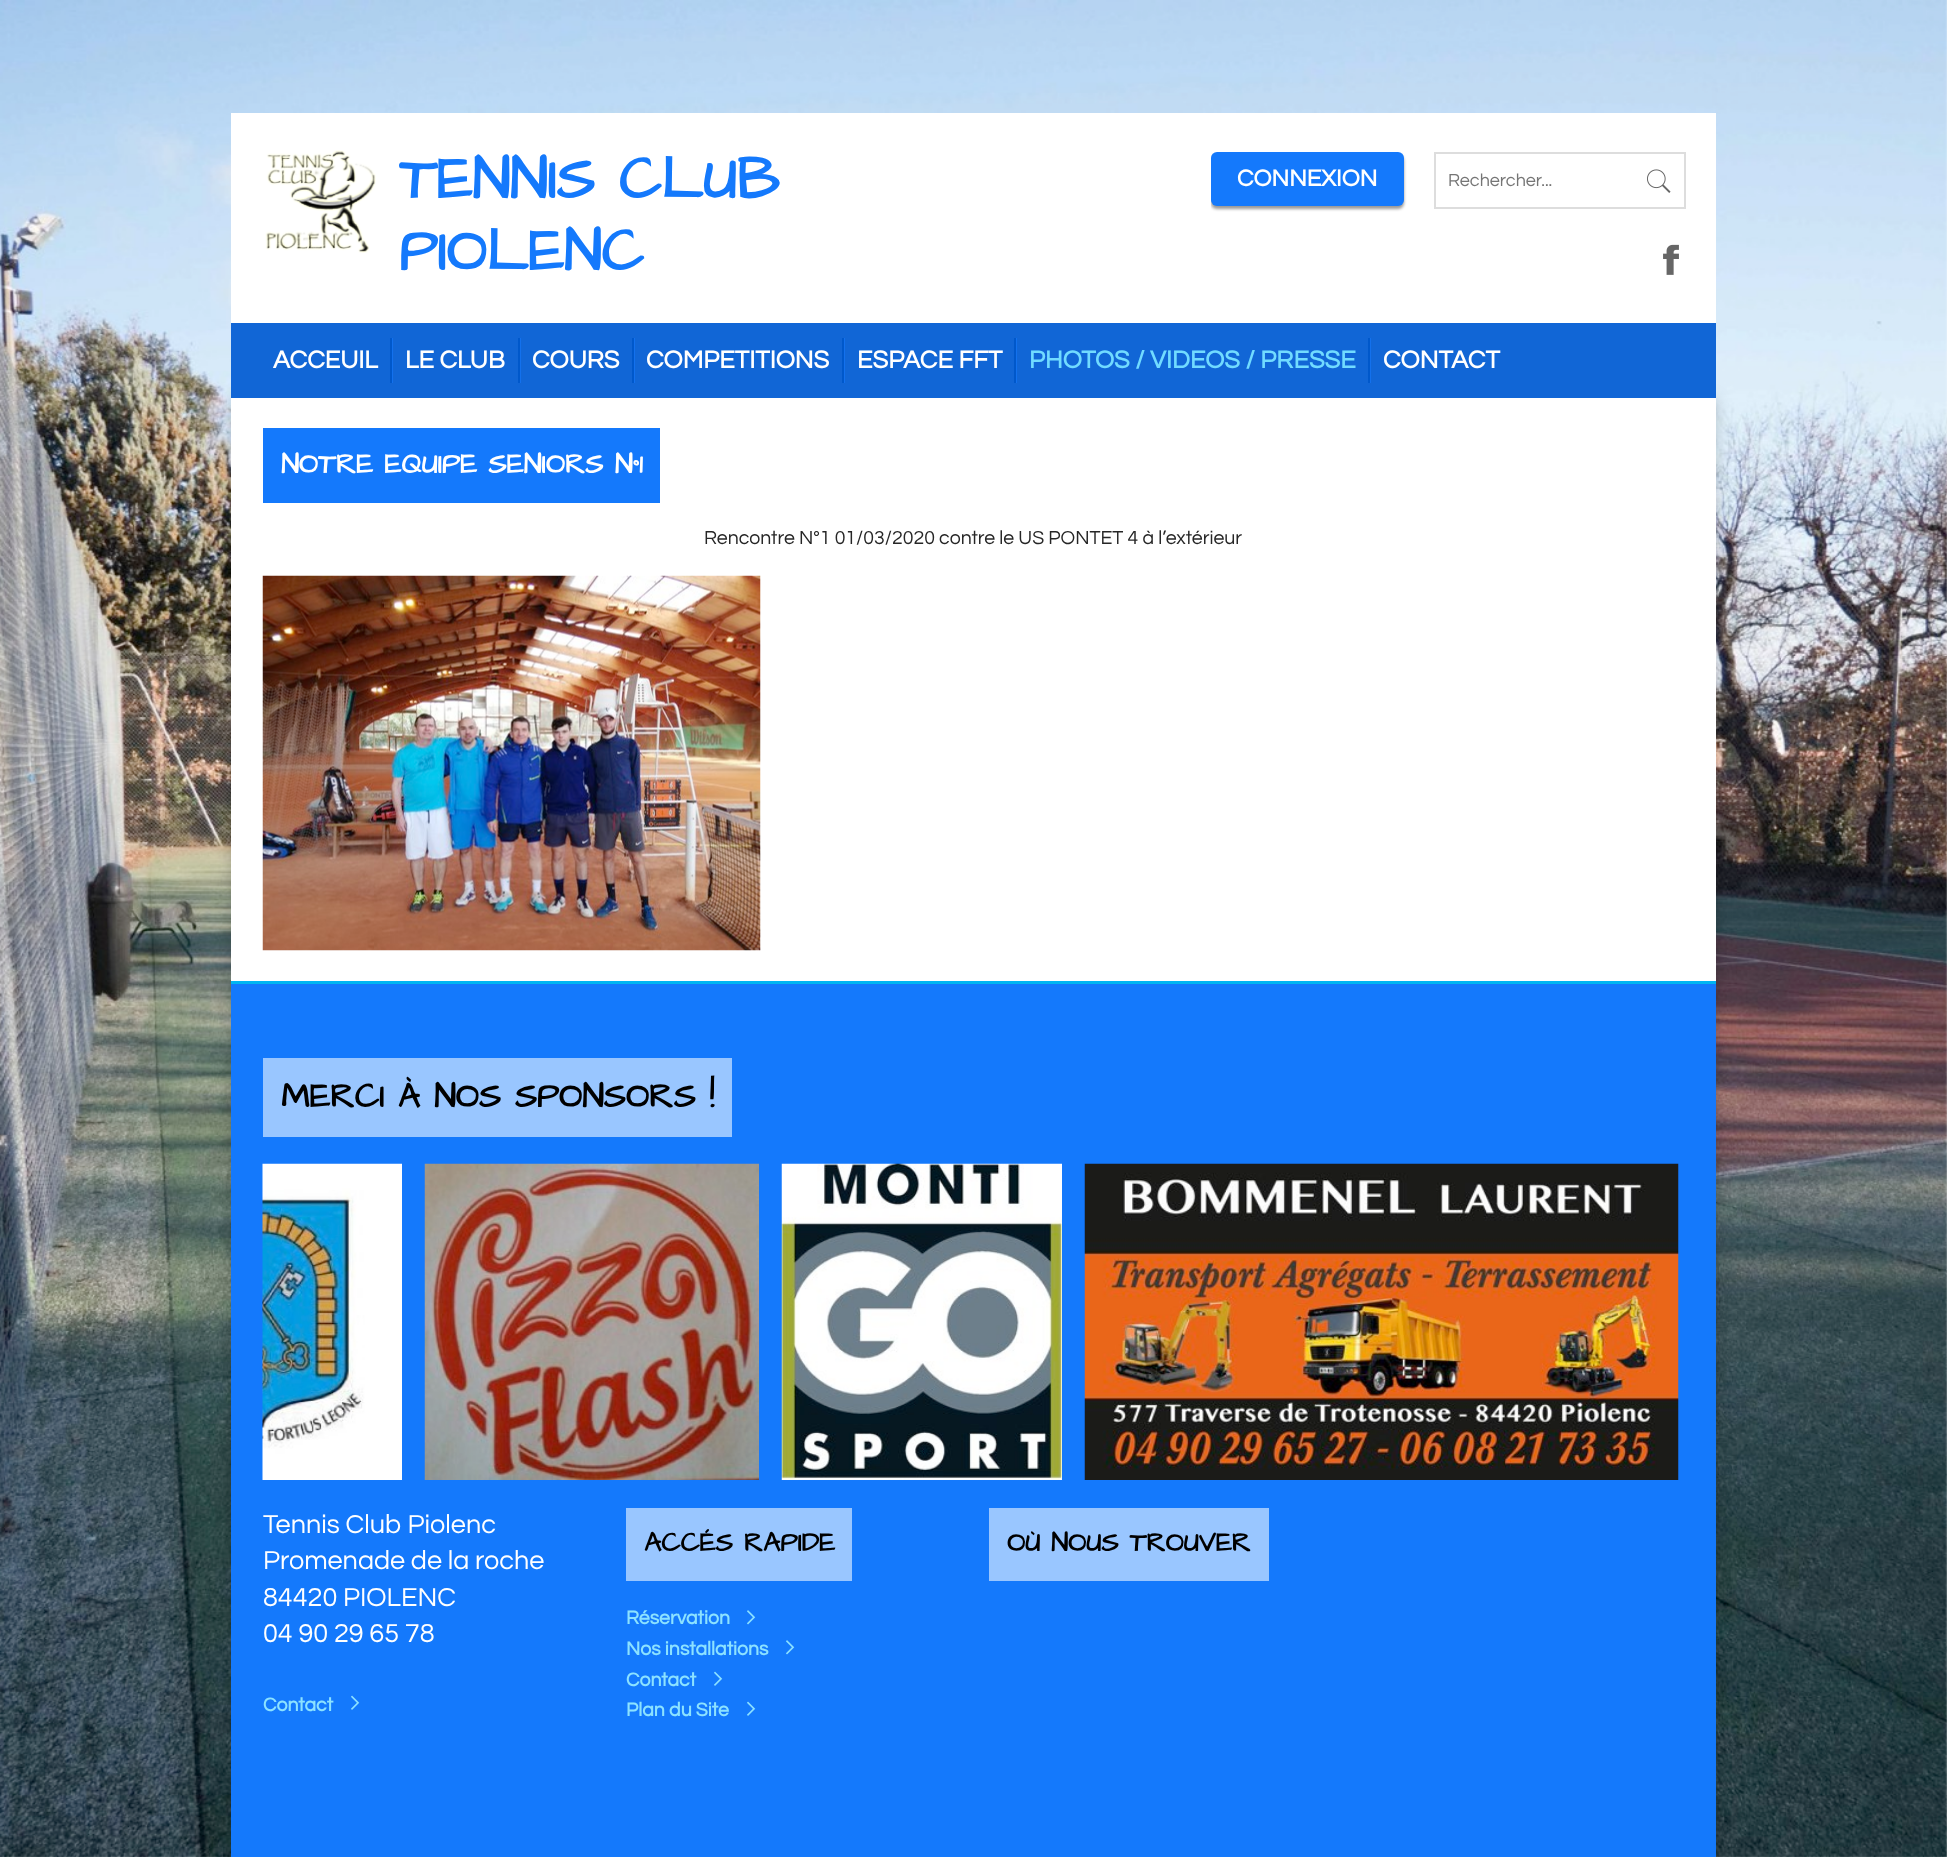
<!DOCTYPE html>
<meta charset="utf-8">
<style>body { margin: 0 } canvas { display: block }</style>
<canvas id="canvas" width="1947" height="1857"></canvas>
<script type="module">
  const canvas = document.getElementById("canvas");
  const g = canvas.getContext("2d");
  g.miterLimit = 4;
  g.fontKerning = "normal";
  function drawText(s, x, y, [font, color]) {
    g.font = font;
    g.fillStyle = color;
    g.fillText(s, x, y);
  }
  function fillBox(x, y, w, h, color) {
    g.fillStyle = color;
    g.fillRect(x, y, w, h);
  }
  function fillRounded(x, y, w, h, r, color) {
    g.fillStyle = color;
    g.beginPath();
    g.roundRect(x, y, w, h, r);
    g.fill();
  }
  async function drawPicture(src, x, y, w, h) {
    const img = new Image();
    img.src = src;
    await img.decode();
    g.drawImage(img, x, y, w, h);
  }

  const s1 = ["bold 60px Architects Daughter", "#1479FC"];
  const s2 = ["bold 24px Questrial", "#FFFFFF"];
  const s3 = ["18px Questrial", "#757575"];
  const s4 = ["bold 25.5px Questrial", "#FFFFFF"];
  const s5 = ["bold 25.5px Questrial", "#71DBFF"];
  const s6 = ["bold 28.5px Architects Daughter", "#FFFFFF"];
  const s7 = ["19.5px Questrial", "#262626"];
  const s8 = ["bold 34.5px Architects Daughter", "#000000"];
  const s9 = ["27px Questrial", "#FFFFFF"];
  const s10 = ["bold 19.5px Questrial", "#8CE2FF"];
  const s11 = ["bold 27px Architects Daughter", "#000000"];

  fillBox(0, 0, 1947, 1857, "#FFFFFF");
  await drawPicture("pic1.png", 0, 0, 1947, 1857);
  fillBox(231, 113, 1485, 210, "#FFFFFF");
  await drawPicture("pic2.png", 265, 150, 111, 103);
  drawText("TENNIS CLUB", 399, 198, s1);
  drawText("PIOLENC", 399, 270, s1);
  g.save();
  g.beginPath();
  g.rect(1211, 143, 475, 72);
  g.clip();
  g.fillStyle = "rgba(0, 0, 0, 0.4)";
  g.filter = "blur(1.5px)";
  g.beginPath();
  g.roundRect(1211, 155, 193, 54, 6);
  g.fill();
  g.filter = "none";
  g.restore();
  fillRounded(1211, 152, 193, 54, 6, "#1479FC");
  drawText("CONNEXION", 1237, 186, s2);
  g.strokeStyle = "#DDDDDD";
  g.lineWidth = 2;
  g.strokeRect(1435, 153, 250, 55);
  drawText("Rechercher...", 1448, 186, s3);
  await drawPicture("pic3.png", 1647, 169, 24, 24);
  await drawPicture("pic4.png", 1663, 244, 16, 31);
  g.fillStyle = "rgba(0, 0, 0, 0.2)";
  g.filter = "blur(7.5px)";
  g.beginPath();
  g.rect(231, 398, 1485, 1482);
  g.fill();
  g.filter = "none";
  fillBox(231, 323, 1485, 75, "#1166D6");
  drawText("ACCEUIL", 273, 368, s4);
  fillBox(392, 338, 1, 45, "#1371ED");
  fillBox(390, 338, 2, 45, "#0058CB");
  drawText("LE CLUB", 405, 368, s4);
  fillBox(520, 338, 1, 45, "#1371ED");
  fillBox(518, 338, 2, 45, "#0058CB");
  drawText("COURS", 532, 368, s4);
  fillBox(634, 338, 1, 45, "#1371ED");
  fillBox(632, 338, 2, 45, "#0058CB");
  drawText("COMPETITIONS", 646, 368, s4);
  fillBox(844, 338, 1, 45, "#1371ED");
  fillBox(842, 338, 2, 45, "#0058CB");
  drawText("ESPACE FFT", 857, 368, s4);
  fillBox(1016, 338, 1, 45, "#1371ED");
  fillBox(1014, 338, 2, 45, "#0058CB");
  drawText("PHOTOS / VIDEOS / PRESSE", 1029, 368, s5);
  fillBox(1370, 338, 1, 45, "#1371ED");
  fillBox(1368, 338, 2, 45, "#0058CB");
  drawText("CONTACT", 1383, 368, s4);
  fillBox(231, 398, 1485, 583, "#FFFFFF");
  fillBox(263, 428, 397, 75, "#1479FC");
  drawText("NOTRE EQUIPE SENIORS N°1", 281, 473, s6);
  drawText("Rencontre N°1 01/03/2020 contre le US PONTET 4 à l’extérieur", 704, 544, s7);
  await drawPicture("pic5.png", 262, 575, 499, 376);
  fillBox(231, 981, 1485, 3, "#00B5F2");
  fillBox(231, 984, 1485, 873, "#1479FC");
  fillBox(263, 1058, 469, 79, "#99C6FF");
  drawText("MERCI À NOS SPONSORS !", 281, 1107, s8);
  await drawPicture("pic6.png", 262, 1163, 140, 317);
  await drawPicture("pic7.png", 424, 1163, 335, 317);
  await drawPicture("pic8.png", 781, 1163, 281, 317);
  await drawPicture("pic9.png", 1084, 1163, 595, 317);
  drawText("Tennis Club Piolenc", 263, 1533, s9);
  drawText("Promenade de la roche", 263, 1569, s9);
  drawText("84420 PIOLENC", 263, 1606, s9);
  drawText("04 90 29 65 78", 263, 1642, s9);
  drawText("Contact", 263, 1711, s10);
  await drawPicture("pic10.png", 351, 1695, 9, 15);
  fillBox(626, 1508, 226, 73, "#99C6FF");
  drawText("ACCÉS RAPIDE", 644, 1551, s11);
  drawText("Réservation", 626, 1624, s10);
  await drawPicture("pic11.png", 747, 1610, 9, 15);
  drawText("Nos installations", 626, 1655, s10);
  await drawPicture("pic11.png", 786, 1640, 9, 15);
  drawText("Contact", 626, 1686, s10);
  await drawPicture("pic10.png", 714, 1671, 9, 15);
  drawText("Plan du Site", 626, 1716, s10);
  await drawPicture("pic10.png", 747, 1701, 9, 15);
  fillBox(989, 1508, 280, 73, "#99C6FF");
  drawText("OÙ NOUS TROUVER", 1007, 1551, s11);
</script>
